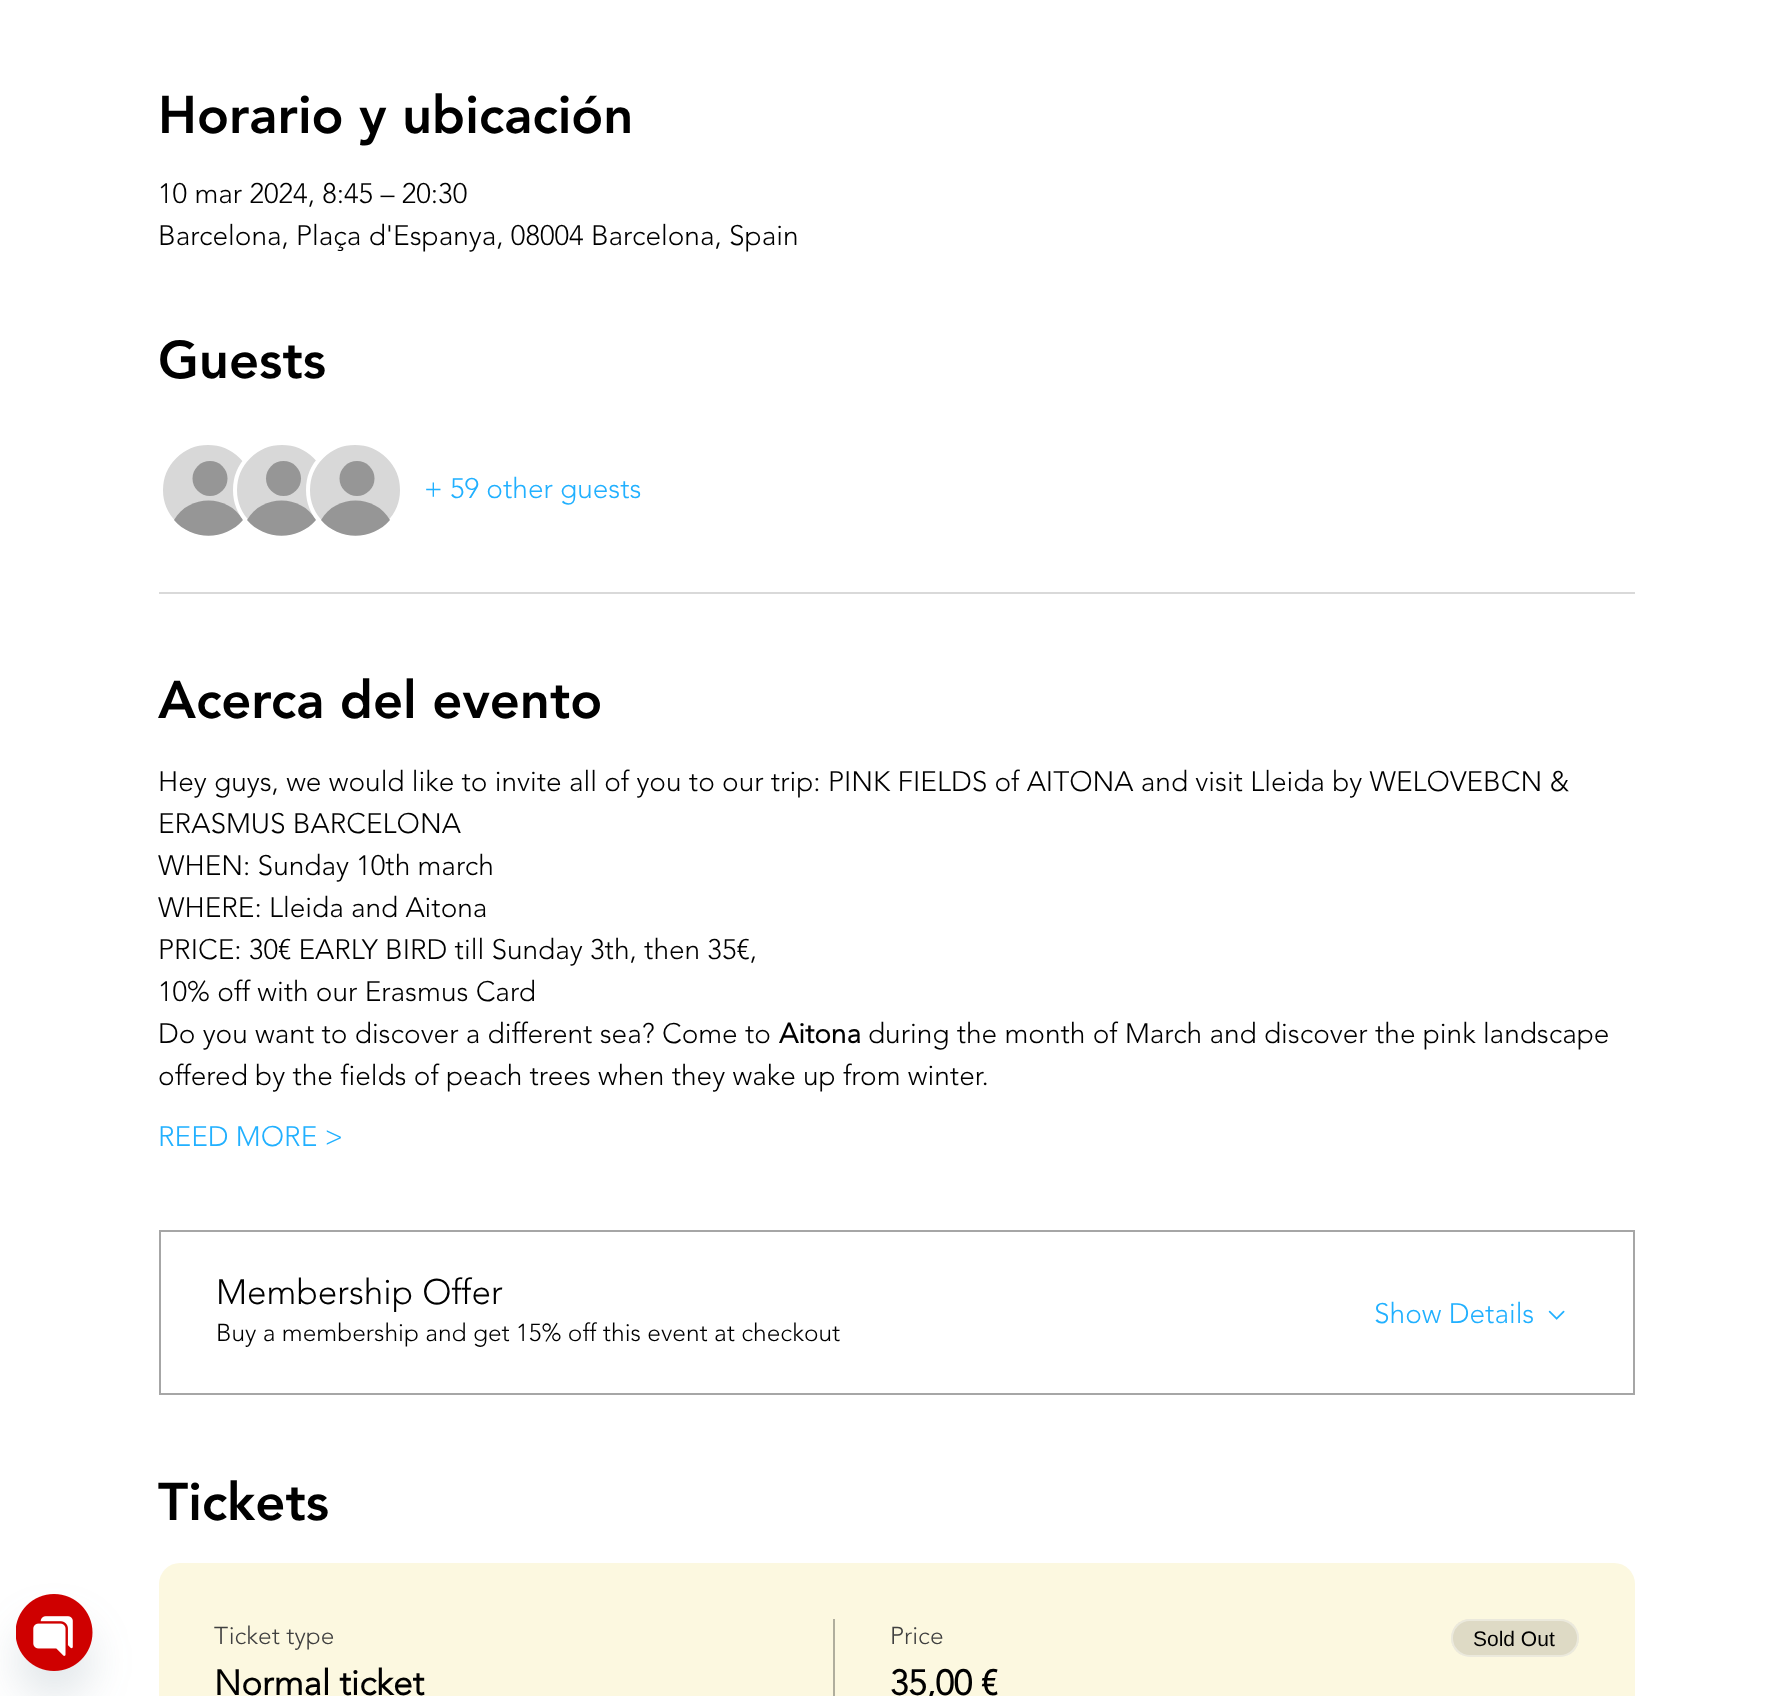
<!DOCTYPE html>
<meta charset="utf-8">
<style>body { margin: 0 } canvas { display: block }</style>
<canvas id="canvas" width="1791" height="1696"></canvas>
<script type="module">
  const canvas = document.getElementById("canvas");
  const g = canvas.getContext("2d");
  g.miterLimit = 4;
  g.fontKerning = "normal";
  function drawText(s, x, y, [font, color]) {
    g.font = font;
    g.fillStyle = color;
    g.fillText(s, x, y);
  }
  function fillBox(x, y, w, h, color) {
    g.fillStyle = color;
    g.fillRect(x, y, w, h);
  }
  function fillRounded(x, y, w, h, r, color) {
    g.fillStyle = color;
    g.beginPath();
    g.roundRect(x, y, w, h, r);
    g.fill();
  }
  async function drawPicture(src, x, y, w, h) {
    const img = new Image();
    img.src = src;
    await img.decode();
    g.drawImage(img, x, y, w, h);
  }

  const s1 = ["900 52.5px 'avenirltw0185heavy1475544'", "#000000"];
  const s2 = ["300 28px 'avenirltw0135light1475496'", "#000000"];
  const s3 = ["300 28px 'avenirltw0135light1475496'", "#21B0FF"];
  const s4 = ["bold 28px 'avenirltw0135light1475496'", "#000000"];
  const s5 = ["300 35px 'avenirltw0135light1475496'", "#000000"];
  const s6 = ["300 24.5px 'avenirltw0135light1475496'", "#000000"];
  const s7 = ["300 24.5px 'avenirltw0135light1475496'", "#404040"];
  const s8 = ["bold 35px 'avenirltw0135light1475496'", "#000000"];
  const s9 = ["21px Liberation Sans", "#000000"];

  fillBox(0, 0, 1791, 1696, "#FFFFFF");
  g.fillStyle = "rgba(73, 104, 126, 0.16)";
  g.filter = "blur(21px)";
  g.beginPath();
  g.roundRect(16, 1622, 77, 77, 38.5);
  g.fill();
  g.filter = "none";
  await drawPicture("pic1.png", 16, 1594, 77, 77);
  drawText("Horario y ubicación", 158, 133, s1);
  drawText("10 mar 2024, 8:45 – 20:30", 158, 203, s2);
  drawText("Barcelona, Plaça d'Espanya, 08004 Barcelona, Spain", 158, 245, s2);
  drawText("Guests", 158, 378, s1);
  g.fillStyle = "#D8D8D8";
  g.beginPath();
  g.arc(208, 490, 47, 0, Math.PI * 2);
  g.fill();
  g.strokeStyle = "#FFFFFF";
  g.lineWidth = 4;
  g.stroke();
  g.fillStyle = "#969696";
  g.beginPath();
  g.arc(210, 478.5, 17.5, 0, Math.PI * 2);
  g.fill();
  g.beginPath();
  g.moveTo(243, 520);
  g.bezierCurveTo(225, 541, 192, 541, 174, 520);
  g.bezierCurveTo(189, 494, 228, 494, 243, 520);
  g.closePath();
  g.fill();
  g.fillStyle = "#D8D8D8";
  g.beginPath();
  g.arc(282, 490, 47, 0, Math.PI * 2);
  g.fill();
  g.stroke();
  g.fillStyle = "#969696";
  g.beginPath();
  g.arc(283.5, 478.5, 17.5, 0, Math.PI * 2);
  g.fill();
  g.beginPath();
  g.moveTo(316, 520);
  g.bezierCurveTo(298, 541, 265, 541, 247, 520);
  g.bezierCurveTo(262, 494, 301, 494, 316, 520);
  g.closePath();
  g.fill();
  g.fillStyle = "#D8D8D8";
  g.beginPath();
  g.arc(355, 490, 47, 0, Math.PI * 2);
  g.fill();
  g.stroke();
  g.fillStyle = "#969696";
  g.beginPath();
  g.arc(357, 478.5, 17.5, 0, Math.PI * 2);
  g.fill();
  g.beginPath();
  g.moveTo(390, 520);
  g.bezierCurveTo(372, 541, 339, 541, 321, 520);
  g.bezierCurveTo(336, 494, 375, 494, 390, 520);
  g.closePath();
  g.fill();
  drawText("+ 59 other guests", 424, 498, s3);
  fillBox(159, 592, 1476, 2, "#D9D9D9");
  drawText("Acerca del evento", 158, 718, s1);
  drawText("Hey guys, we would like to invite all of you to our trip: PINK FIELDS of AITONA and visit Lleida by WELOVEBCN &", 158, 791, s2);
  drawText("ERASMUS BARCELONA", 158, 833, s2);
  drawText("WHEN: Sunday 10th march", 158, 875, s2);
  drawText("WHERE: Lleida and Aitona", 158, 917, s2);
  drawText("PRICE: 30€ EARLY BIRD till Sunday 3th, then 35€,", 158, 959, s2);
  drawText("10% off with our Erasmus Card", 158, 1001, s2);
  drawText("Do you want to discover a different sea? Come to", 158, 1043, s2);
  drawText("Aitona", 779, 1043, s4);
  drawText("during the month of March and discover the pink landscape", 868, 1043, s2);
  drawText("offered by the fields of peach trees when they wake up from winter.", 158, 1085, s2);
  drawText("REED MORE >", 158, 1146, s3);
  g.strokeStyle = "#A6A6A6";
  g.lineWidth = 2;
  g.strokeRect(160, 1231, 1474, 163);
  drawText("Membership Offer", 216, 1304, s5);
  drawText("Buy a membership and get 15% off this event at checkout", 216, 1341, s6);
  drawText("Show Details", 1374, 1323, s3);
  await drawPicture("pic2.png", 1548, 1310, 17, 10);
  drawText("Tickets", 158, 1520, s1);
  fillRounded(159, 1563, 1476, 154, 21, "#FCF8E0");
  drawText("Ticket type", 214, 1644, s7);
  drawText("Normal ticket", 214, 1695, s8);
  fillBox(833, 1619, 2, 77, "#B0AE9D");
  drawText("Price", 890, 1644, s7);
  drawText("35,00 €", 890, 1695, s8);
  fillRounded(1451, 1619, 128, 38, 19, "#DEDAC5");
  g.beginPath();
  g.roundRect(1452, 1620, 126, 36, 18);
  g.strokeStyle = "rgba(255, 255, 255, 0.4)";
  g.stroke();
  drawText("Sold Out", 1473, 1646, s9);
</script>
